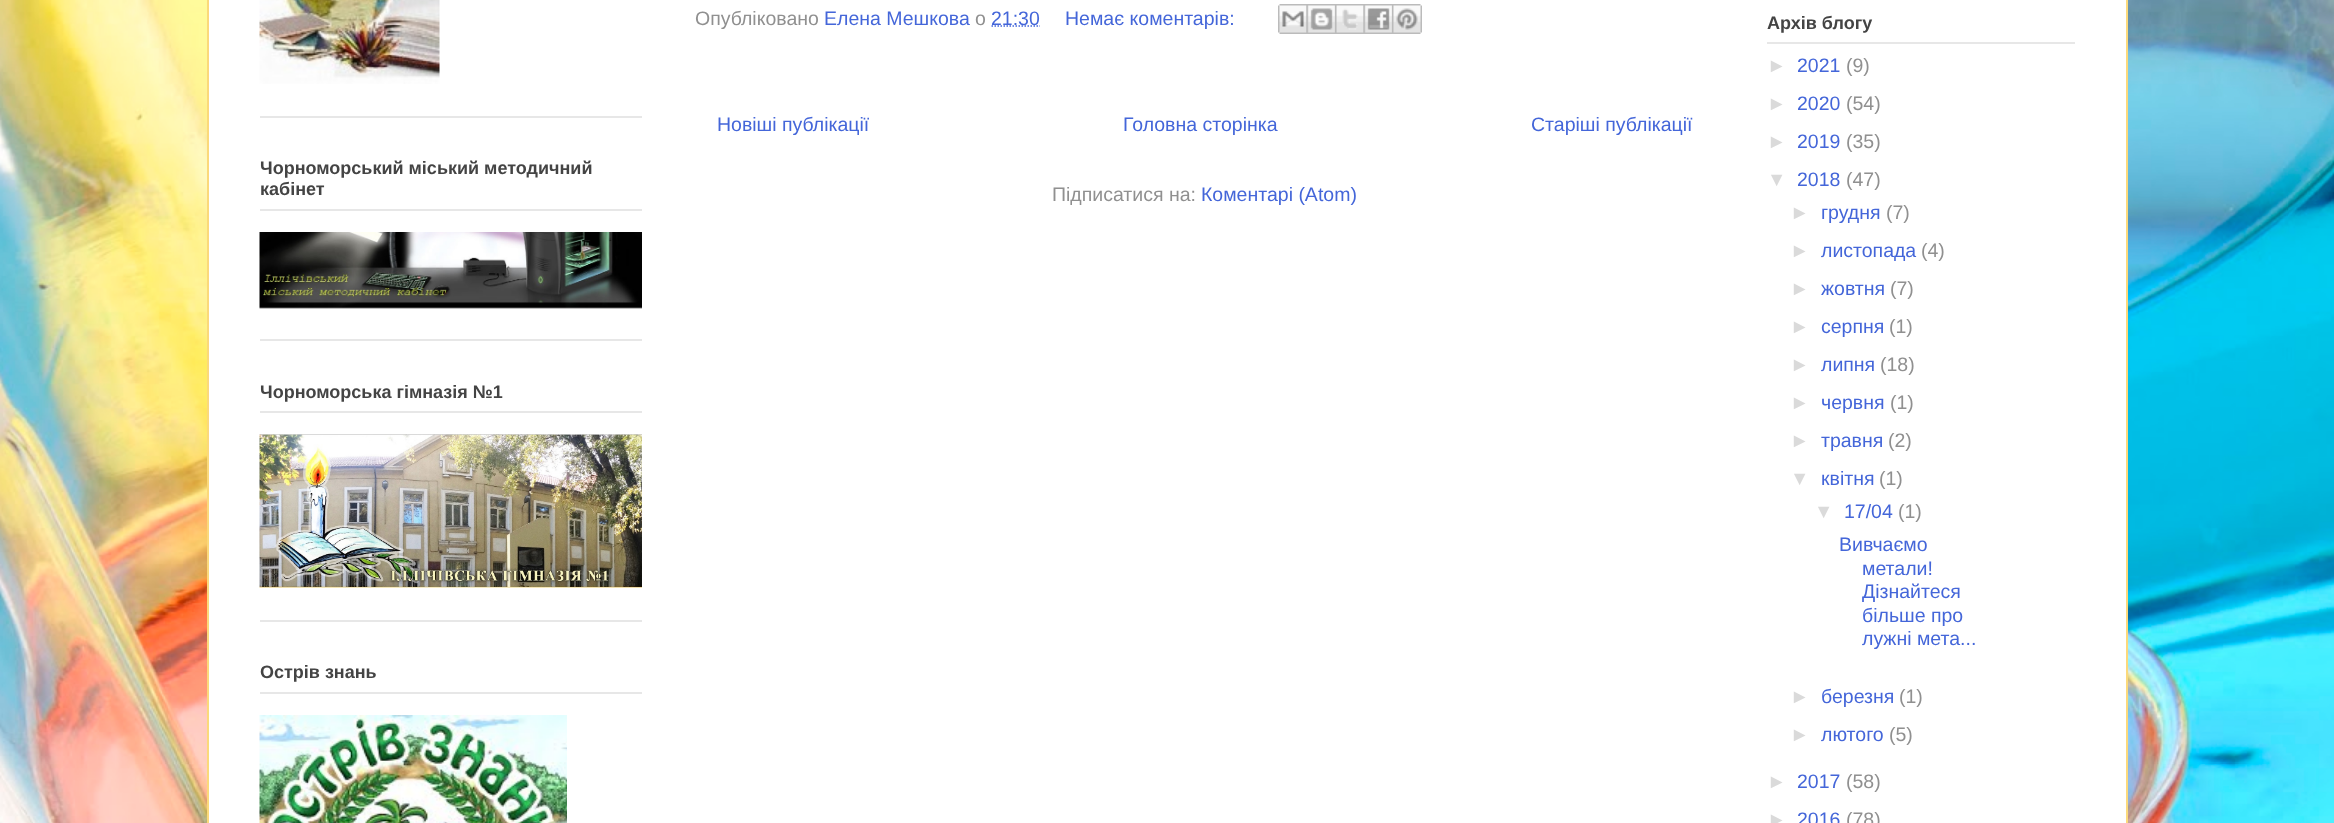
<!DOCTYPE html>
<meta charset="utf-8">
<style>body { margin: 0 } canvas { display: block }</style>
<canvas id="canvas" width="2334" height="823"></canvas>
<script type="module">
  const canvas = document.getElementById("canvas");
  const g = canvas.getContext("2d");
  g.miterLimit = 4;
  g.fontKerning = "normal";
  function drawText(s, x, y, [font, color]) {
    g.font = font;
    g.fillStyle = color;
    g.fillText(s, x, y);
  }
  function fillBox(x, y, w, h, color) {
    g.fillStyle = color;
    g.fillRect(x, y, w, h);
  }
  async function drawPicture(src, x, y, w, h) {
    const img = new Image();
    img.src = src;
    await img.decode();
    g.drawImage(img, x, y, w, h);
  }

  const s1 = ["bold 18px Liberation Sans", "#444444"];
  const s2 = ["19.5px Liberation Sans", "#909090"];
  const s3 = ["19.5px Liberation Sans", "#4466D9"];
  const s4 = ["19.5px Liberation Sans", "#DADADA"];

  fillBox(0, 0, 2334, 823, "#FFFFFF");
  await drawPicture("pic1.png", 0, 0, 2334, 823);
  fillBox(209, 0, 1917, 823, "#FFFFFF");
  fillBox(2126, 0, 2, 823, "#FBD97B");
  fillBox(207, 0, 2, 823, "#FBD97B");
  fillBox(260, 116, 382, 2, "#E7E7E7");
  await drawPicture("pic2.png", 259, 0, 181, 84);
  fillBox(260, 339, 382, 2, "#E7E7E7");
  fillBox(260, 209, 382, 2, "#E7E7E7");
  drawText("Чорноморський міський методичний", 260, 174, s1);
  drawText("кабінет", 260, 195, s1);
  await drawPicture("pic3.png", 259, 232, 383, 77);
  fillBox(260, 620, 382, 2, "#E7E7E7");
  fillBox(260, 411, 382, 2, "#E7E7E7");
  drawText("Чорноморська гімназія №1", 260, 398, s1);
  await drawPicture("pic4.png", 259, 434, 383, 154);
  fillBox(260, 692, 382, 2, "#E7E7E7");
  drawText("Острів знань", 260, 678, s1);
  await drawPicture("pic5.png", 259, 715, 308, 108);
  drawText("Опубліковано", 695, 25, s2);
  drawText("Елена Мешкова", 824, 25, s3);
  drawText("о", 975, 25, s2);
  g.beginPath();
  g.moveTo(991.5, 26);
  g.lineTo(1040, 26);
  g.strokeStyle = "#4466D9";
  g.lineWidth = 1.5;
  g.setLineDash([1.5, 1.5]);
  g.stroke();
  drawText("21:30", 991, 25, s3);
  drawText("Немає коментарів:", 1065, 25, s3);
  await drawPicture("pic6.png", 1278, 4, 29, 30);
  await drawPicture("pic7.png", 1306, 4, 29, 30);
  await drawPicture("pic8.png", 1335, 4, 29, 30);
  await drawPicture("pic9.png", 1363, 4, 29, 30);
  await drawPicture("pic10.png", 1392, 4, 30, 30);
  drawText("Новіші публікації", 717, 131, s3);
  drawText("Головна сторінка", 1123, 131, s3);
  drawText("Старіші публікації", 1531, 131, s3);
  drawText("Підписатися на:", 1052, 201, s2);
  drawText("Коментарі (Atom)", 1201, 201, s3);
  fillBox(1767, 42, 308, 2, "#E7E7E7");
  drawText("Архів блогу", 1767, 29, s1);
  drawText("►", 1767, 72, s4);
  drawText("2021", 1797, 72, s3);
  drawText("(9)", 1846, 72, s2);
  drawText("►", 1767, 110, s4);
  drawText("2020", 1797, 110, s3);
  drawText("(54)", 1846, 110, s2);
  drawText("►", 1767, 148, s4);
  drawText("2019", 1797, 148, s3);
  drawText("(35)", 1846, 148, s2);
  drawText("▼", 1767, 186, s4);
  drawText("2018", 1797, 186, s3);
  drawText("(47)", 1846, 186, s2);
  drawText("►", 1790, 219, s4);
  drawText("грудня", 1821, 219, s3);
  drawText("(7)", 1886, 219, s2);
  drawText("►", 1790, 257, s4);
  drawText("листопада", 1821, 257, s3);
  drawText("(4)", 1921, 257, s2);
  drawText("►", 1790, 295, s4);
  drawText("жовтня", 1821, 295, s3);
  drawText("(7)", 1890, 295, s2);
  drawText("►", 1790, 333, s4);
  drawText("серпня", 1821, 333, s3);
  drawText("(1)", 1889, 333, s2);
  drawText("►", 1790, 371, s4);
  drawText("липня", 1821, 371, s3);
  drawText("(18)", 1880, 371, s2);
  drawText("►", 1790, 409, s4);
  drawText("червня", 1821, 409, s3);
  drawText("(1)", 1890, 409, s2);
  drawText("►", 1790, 447, s4);
  drawText("травня", 1821, 447, s3);
  drawText("(2)", 1888, 447, s2);
  drawText("▼", 1790, 485, s4);
  drawText("квітня", 1821, 485, s3);
  drawText("(1)", 1879, 485, s2);
  drawText("▼", 1814, 518, s4);
  drawText("17/04", 1844, 518, s3);
  drawText("(1)", 1898, 518, s2);
  drawText("Вивчаємо", 1839, 551, s3);
  drawText("метали!", 1862, 575, s3);
  drawText("Дізнайтеся", 1862, 598, s3);
  drawText("більше про", 1862, 622, s3);
  drawText("лужні мета...", 1862, 645, s3);
  drawText("►", 1790, 703, s4);
  drawText("березня", 1821, 703, s3);
  drawText("(1)", 1899, 703, s2);
  drawText("►", 1790, 741, s4);
  drawText("лютого", 1821, 741, s3);
  drawText("(5)", 1889, 741, s2);
  drawText("►", 1767, 788, s4);
  drawText("2017", 1797, 788, s3);
  drawText("(58)", 1846, 788, s2);
  drawText("►", 1767, 826, s4);
  drawText("2016", 1797, 826, s3);
  drawText("(78)", 1846, 826, s2);
</script>
